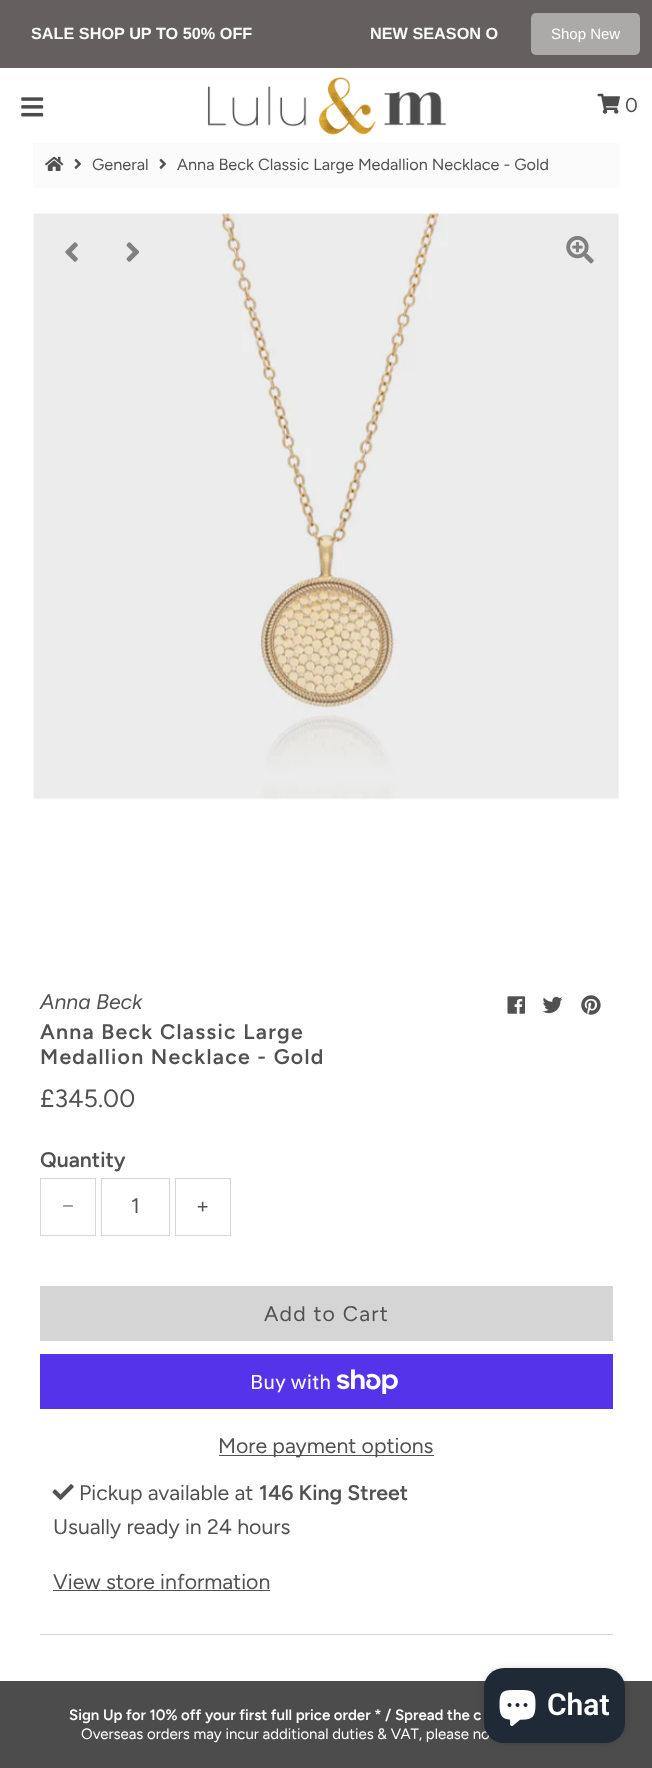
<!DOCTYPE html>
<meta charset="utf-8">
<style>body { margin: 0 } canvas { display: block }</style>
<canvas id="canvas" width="652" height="1768"></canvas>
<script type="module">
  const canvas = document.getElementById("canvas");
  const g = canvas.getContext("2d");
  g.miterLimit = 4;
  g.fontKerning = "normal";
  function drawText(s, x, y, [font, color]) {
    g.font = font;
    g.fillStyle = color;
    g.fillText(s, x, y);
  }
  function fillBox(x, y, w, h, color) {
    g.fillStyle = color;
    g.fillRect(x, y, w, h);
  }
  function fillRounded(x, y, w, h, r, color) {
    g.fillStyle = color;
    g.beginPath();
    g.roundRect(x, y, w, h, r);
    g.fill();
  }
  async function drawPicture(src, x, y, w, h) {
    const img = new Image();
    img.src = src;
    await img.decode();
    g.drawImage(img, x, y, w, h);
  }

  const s1 = ["bold 16.25px Liberation Sans", "#F9FAFA"];
  const s2 = ["15px Liberation Sans", "#FFFFFF"];
  const s3 = ["20px Figtree", "#515151"];
  const s4 = ["16.25px Figtree", "#515151"];
  const s5 = ["italic 21.25px Figtree", "#515151"];
  const s6 = ["600 21.25px Figtree", "#515151"];
  const s7 = ["25px Figtree", "#515151"];
  const s8 = ["21.25px Liberation Serif", "#515151"];
  const s9 = ["21.25px Figtree", "#515151"];
  const s10 = ["20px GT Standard", "#FFFFFF"];
  const s11 = ["600 15px Figtree", "#FFFFFF"];
  const s12 = ["15px Figtree", "#FFFFFF"];
  const s13 = ["600 30px Roboto", "#FFFFFF"];

  fillBox(0, 0, 652, 1768, "#FFFFFF");
  fillBox(0, 0, 652, 68, "#665F5F");
  drawText("SALE SHOP UP TO 50% OFF", 31, 39, s1);
  drawText("NEW SEASON O", 370, 39, s1);
  fillRounded(531, 13, 109, 42, 5, "#ACA9A9");
  drawText("Shop New", 551, 39, s2);
  await drawPicture("pic1.png", 21, 97, 23, 20);
  await drawPicture("pic2.png", 207, 77, 240, 58);
  await drawPicture("pic3.png", 597, 93, 23, 21);
  drawText("0", 625, 112, s3);
  fillBox(33, 143, 587, 45, "#FBFBFB");
  await drawPicture("pic4.png", 45, 156, 19, 15);
  await drawPicture("pic5.png", 74, 158, 7, 11);
  drawText("General", 92, 170, s4);
  await drawPicture("pic5.png", 159, 158, 7, 11);
  drawText("Anna Beck Classic Large Medallion Necklace - Gold", 177, 170, s4);
  await drawPicture("pic6.png", 33, 213, 586, 587);
  await drawPicture("pic7.png", 566, 235, 28, 29);
  await drawPicture("pic8.png", 65, 242, 13, 20);
  await drawPicture("pic9.png", 126, 242, 13, 20);
  drawText("Anna Beck", 40, 1009, s5);
  await drawPicture("pic10.png", 507, 996, 18, 18);
  await drawPicture("pic11.png", 542, 996, 21, 18);
  await drawPicture("pic12.png", 581, 995, 20, 20);
  g.letterSpacing = "1.25px";
  drawText("Anna Beck Classic Large", 40, 1039, s6);
  drawText("Medallion Necklace - Gold", 40, 1064, s6);
  g.letterSpacing = "0px";
  drawText("£345.00", 40, 1107, s7);
  drawText("Quantity", 40, 1167, s6);
  g.strokeStyle = "#D5D5D5";
  g.strokeRect(40.5, 1178.5, 55, 57);
  g.letterSpacing = "1.25px";
  drawText("−", 62, 1213, s8);
  g.strokeRect(101.5, 1178.5, 68, 57);
  g.letterSpacing = "0px";
  drawText("1", 131, 1213, s9);
  g.strokeRect(175.5, 1178.5, 55, 57);
  g.letterSpacing = "1.25px";
  drawText("+", 196, 1213, s9);
  fillBox(40, 1286, 573, 55, "#D5D5D5");
  drawText("Add to Cart", 264, 1321, s9);
  fillBox(40, 1354, 573, 55, "#5433EB");
  g.letterSpacing = "0px";
  drawText("Buy with", 250, 1389, s10);
  await drawPicture("pic13.png", 336, 1369, 62, 25);
  fillBox(219, 1455, 215, 1, "#515151");
  drawText("More payment options", 218, 1453, s9);
  fillBox(40, 1634, 573, 1, "#D5D5D5");
  await drawPicture("pic14.png", 52, 1484, 22, 16);
  drawText("Pickup available at", 79, 1500, s9);
  drawText("146 King Street", 259, 1500, s6);
  drawText("Usually ready in 24 hours", 53, 1534, s9);
  drawText("View store information", 53, 1589, s9);
  fillBox(53, 1590, 217, 1, "#515151");
  fillBox(0, 1681, 652, 87, "#4C4C4C");
  drawText("Sign Up for 10% off your first full price order * / Spread the c", 69, 1720, s11);
  drawText("Overseas orders may incur additional duties & VAT, please no", 81, 1739, s12);
  g.fillStyle = "rgba(0, 0, 0, 0.15)";
  g.filter = "blur(3px)";
  g.beginPath();
  g.roundRect(484, 1668, 141, 75, 20);
  g.fill();
  g.filter = "none";
  fillRounded(484, 1668, 141, 75, 20, "#202A36");
  await drawPicture("pic15.png", 499, 1690, 37, 36);
  drawText("Chat", 547, 1715, s13);
</script>
